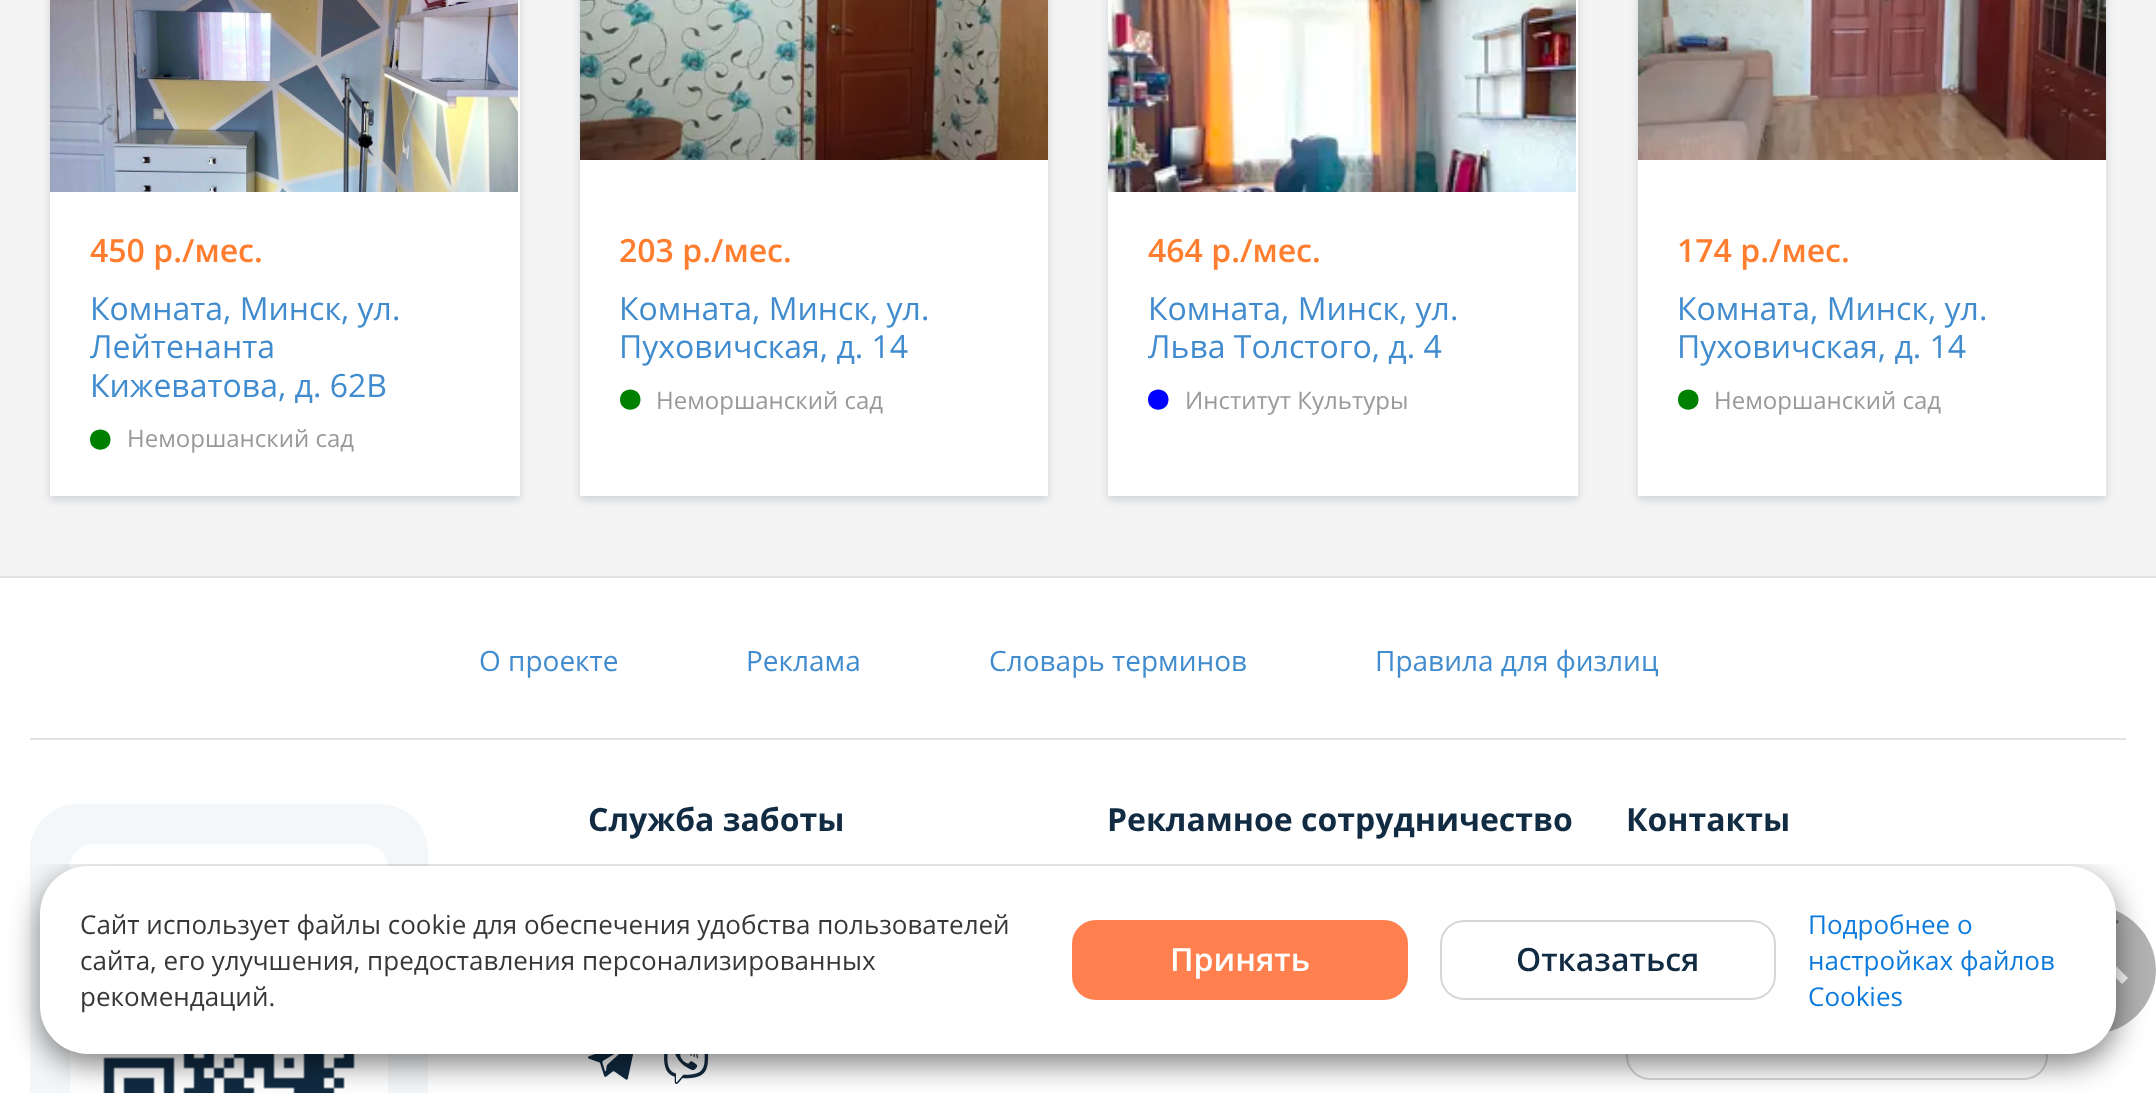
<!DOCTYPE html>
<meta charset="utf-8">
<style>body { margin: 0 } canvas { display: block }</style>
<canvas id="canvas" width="2156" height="1093"></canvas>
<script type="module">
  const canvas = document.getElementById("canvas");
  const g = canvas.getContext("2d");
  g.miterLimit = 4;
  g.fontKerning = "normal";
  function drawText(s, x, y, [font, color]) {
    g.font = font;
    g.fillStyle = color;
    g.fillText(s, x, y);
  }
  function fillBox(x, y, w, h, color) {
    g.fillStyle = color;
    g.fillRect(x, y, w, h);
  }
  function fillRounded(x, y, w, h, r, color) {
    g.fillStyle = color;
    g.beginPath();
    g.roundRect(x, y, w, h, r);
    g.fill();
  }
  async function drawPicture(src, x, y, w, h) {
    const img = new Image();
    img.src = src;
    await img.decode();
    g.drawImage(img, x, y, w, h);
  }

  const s1 = ["600 32px Open Sans", "#FF7D2F"];
  const s2 = ["32px Open Sans", "#418CCF"];
  const s3 = ["24px Open Sans", "#999999"];
  const s4 = ["28px Open Sans", "#418CCF"];
  const s5 = ["bold 32px Open Sans", "#112B42"];
  const s6 = ["24px Open Sans", "#90979C"];
  const s7 = ["26px Open Sans", "#373737"];
  const s8 = ["600 32px Open Sans", "#FFFFFF"];
  const s9 = ["600 32px Open Sans", "#112B42"];
  const s10 = ["26px Open Sans", "#0D7BDD"];

  fillBox(0, 0, 2156, 1093, "#F4F4F4");
  g.fillStyle = "rgba(0, 17, 51, 0.15)";
  g.filter = "blur(4px)";
  g.beginPath();
  g.rect(50, -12, 470, 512);
  g.fill();
  g.filter = "none";
  fillBox(50, 0, 470, 496, "#FFFFFF");
  await drawPicture("pic1.png", 50, 0, 468, 192);
  drawText("450 р./мес.", 90, 262, s1);
  drawText("Комната, Минск, ул.", 90, 320, s2);
  drawText("Лейтенанта", 90, 358, s2);
  drawText("Кижеватова, д. 62В", 90, 397, s2);
  g.fillStyle = "#008000";
  g.beginPath();
  g.moveTo(110.5, 439.5);
  g.bezierCurveTo(110.5, 426, 90, 426, 90, 439.5);
  g.bezierCurveTo(90, 453, 110.5, 453, 110.5, 439.5);
  g.closePath();
  g.fill();
  drawText("Неморшанский сад", 127, 447, s3);
  g.fillStyle = "rgba(0, 17, 51, 0.15)";
  g.filter = "blur(4px)";
  g.beginPath();
  g.rect(580, -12, 468, 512);
  g.fill();
  g.filter = "none";
  fillBox(580, 160, 468, 336, "#FFFFFF");
  await drawPicture("pic2.png", 580, 0, 468, 160);
  drawText("203 р./мес.", 619, 262, s1);
  drawText("Комната, Минск, ул.", 619, 320, s2);
  drawText("Пуховичская, д. 14", 619, 358, s2);
  g.fillStyle = "#008000";
  g.beginPath();
  g.moveTo(640.5, 399.5);
  g.bezierCurveTo(640.5, 386, 620, 386, 620, 399.5);
  g.bezierCurveTo(620, 413, 640.5, 413, 640.5, 399.5);
  g.closePath();
  g.fill();
  drawText("Неморшанский сад", 656, 409, s3);
  g.fillStyle = "rgba(0, 17, 51, 0.15)";
  g.filter = "blur(4px)";
  g.beginPath();
  g.rect(1108, -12, 470, 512);
  g.fill();
  g.filter = "none";
  fillBox(1108, 0, 470, 496, "#FFFFFF");
  await drawPicture("pic3.png", 1108, 0, 468, 192);
  drawText("464 р./мес.", 1148, 262, s1);
  drawText("Комната, Минск, ул.", 1148, 320, s2);
  drawText("Льва Толстого, д. 4", 1148, 358, s2);
  g.fillStyle = "#0000FF";
  g.beginPath();
  g.moveTo(1168.5, 399.5);
  g.bezierCurveTo(1168.5, 386, 1148, 386, 1148, 399.5);
  g.bezierCurveTo(1148, 413, 1168.5, 413, 1168.5, 399.5);
  g.closePath();
  g.fill();
  drawText("Институт Культуры", 1185, 409, s3);
  g.fillStyle = "rgba(0, 17, 51, 0.15)";
  g.filter = "blur(4px)";
  g.beginPath();
  g.rect(1638, -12, 468, 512);
  g.fill();
  g.filter = "none";
  fillBox(1638, 160, 468, 336, "#FFFFFF");
  await drawPicture("pic4.png", 1638, 0, 468, 160);
  drawText("174 р./мес.", 1677, 262, s1);
  drawText("Комната, Минск, ул.", 1677, 320, s2);
  drawText("Пуховичская, д. 14", 1677, 358, s2);
  g.fillStyle = "#008000";
  g.beginPath();
  g.moveTo(1698.5, 399.5);
  g.bezierCurveTo(1698.5, 386, 1678, 386, 1678, 399.5);
  g.bezierCurveTo(1678, 413, 1698.5, 413, 1698.5, 399.5);
  g.closePath();
  g.fill();
  drawText("Неморшанский сад", 1714, 409, s3);
  fillBox(0, 578, 2156, 515, "#FFFFFF");
  fillBox(0, 576, 2156, 2, "#E1E1E1");
  fillBox(30, 738, 2096, 2, "#E1E1E1");
  drawText("О проекте", 479, 671, s4);
  drawText("Реклама", 746, 671, s4);
  drawText("Словарь терминов", 989, 671, s4);
  drawText("Правила для физлиц", 1375, 671, s4);
  fillRounded(30, 804, 398, 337, 48, "#F4F7F9");
  await drawPicture("pic5.png", 70, 844, 318, 249);
  drawText("Служба заботы", 588, 831, s5);
  await drawPicture("pic6.png", 588, 1054, 46, 26);
  await drawPicture("pic7.png", 664, 1054, 45, 30);
  drawText("Рекламное сотрудничество", 1107, 831, s5);
  drawText("Контакты", 1626, 831, s5);
  drawText(".", 2114, 923, s6);
  g.beginPath();
  g.roundRect(1627, 997, 420, 82, 23);
  g.strokeStyle = "#D4D7D9";
  g.lineWidth = 2;
  g.stroke();
  g.fillStyle = "rgba(0, 0, 0, 0.3)";
  g.beginPath();
  g.moveTo(2092, 906);
  g.bezierCurveTo(2057, 906, 2028, 935, 2028, 970);
  g.bezierCurveTo(2028, 1005, 2057, 1034, 2092, 1034);
  g.bezierCurveTo(2127, 1034, 2156, 1005, 2156, 970);
  g.bezierCurveTo(2156, 935, 2127, 906, 2092, 906);
  g.closePath();
  g.moveTo(2122, 984);
  g.lineTo(2092, 954);
  g.lineTo(2062, 984);
  g.lineTo(2056, 978);
  g.lineTo(2092, 942);
  g.lineTo(2128, 978);
  g.closePath();
  g.fill();
  g.save();
  g.beginPath();
  g.rect(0, 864, 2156, 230);
  g.clip();
  g.fillStyle = "rgba(0, 0, 0, 0.5)";
  g.filter = "blur(15px)";
  g.beginPath();
  g.roundRect(40, 876, 2076, 188, 48);
  g.fill();
  g.filter = "none";
  g.restore();
  fillRounded(40, 866, 2076, 188, 48, "#FFFFFF");
  drawText("Сайт использует файлы cookie для обеспечения удобства пользователей", 80, 934, s7);
  drawText("сайта, его улучшения, предоставления персонализированных", 80, 970, s7);
  drawText("рекомендаций.", 80, 1006, s7);
  g.fillStyle = "#FF7F4E";
  g.beginPath();
  g.roundRect(1073, 921, 334, 78, 23);
  g.fill();
  g.strokeStyle = "#FF7F4E";
  g.stroke();
  drawText("Принять", 1170, 971, s8);
  g.beginPath();
  g.roundRect(1441, 921, 334, 78, 23);
  g.strokeStyle = "#D4D7D9";
  g.stroke();
  drawText("Отказаться", 1516, 971, s9);
  drawText("Подробнее о", 1808, 934, s10);
  drawText("настройках файлов", 1808, 970, s10);
  drawText("Cookies", 1808, 1006, s10);
</script>
